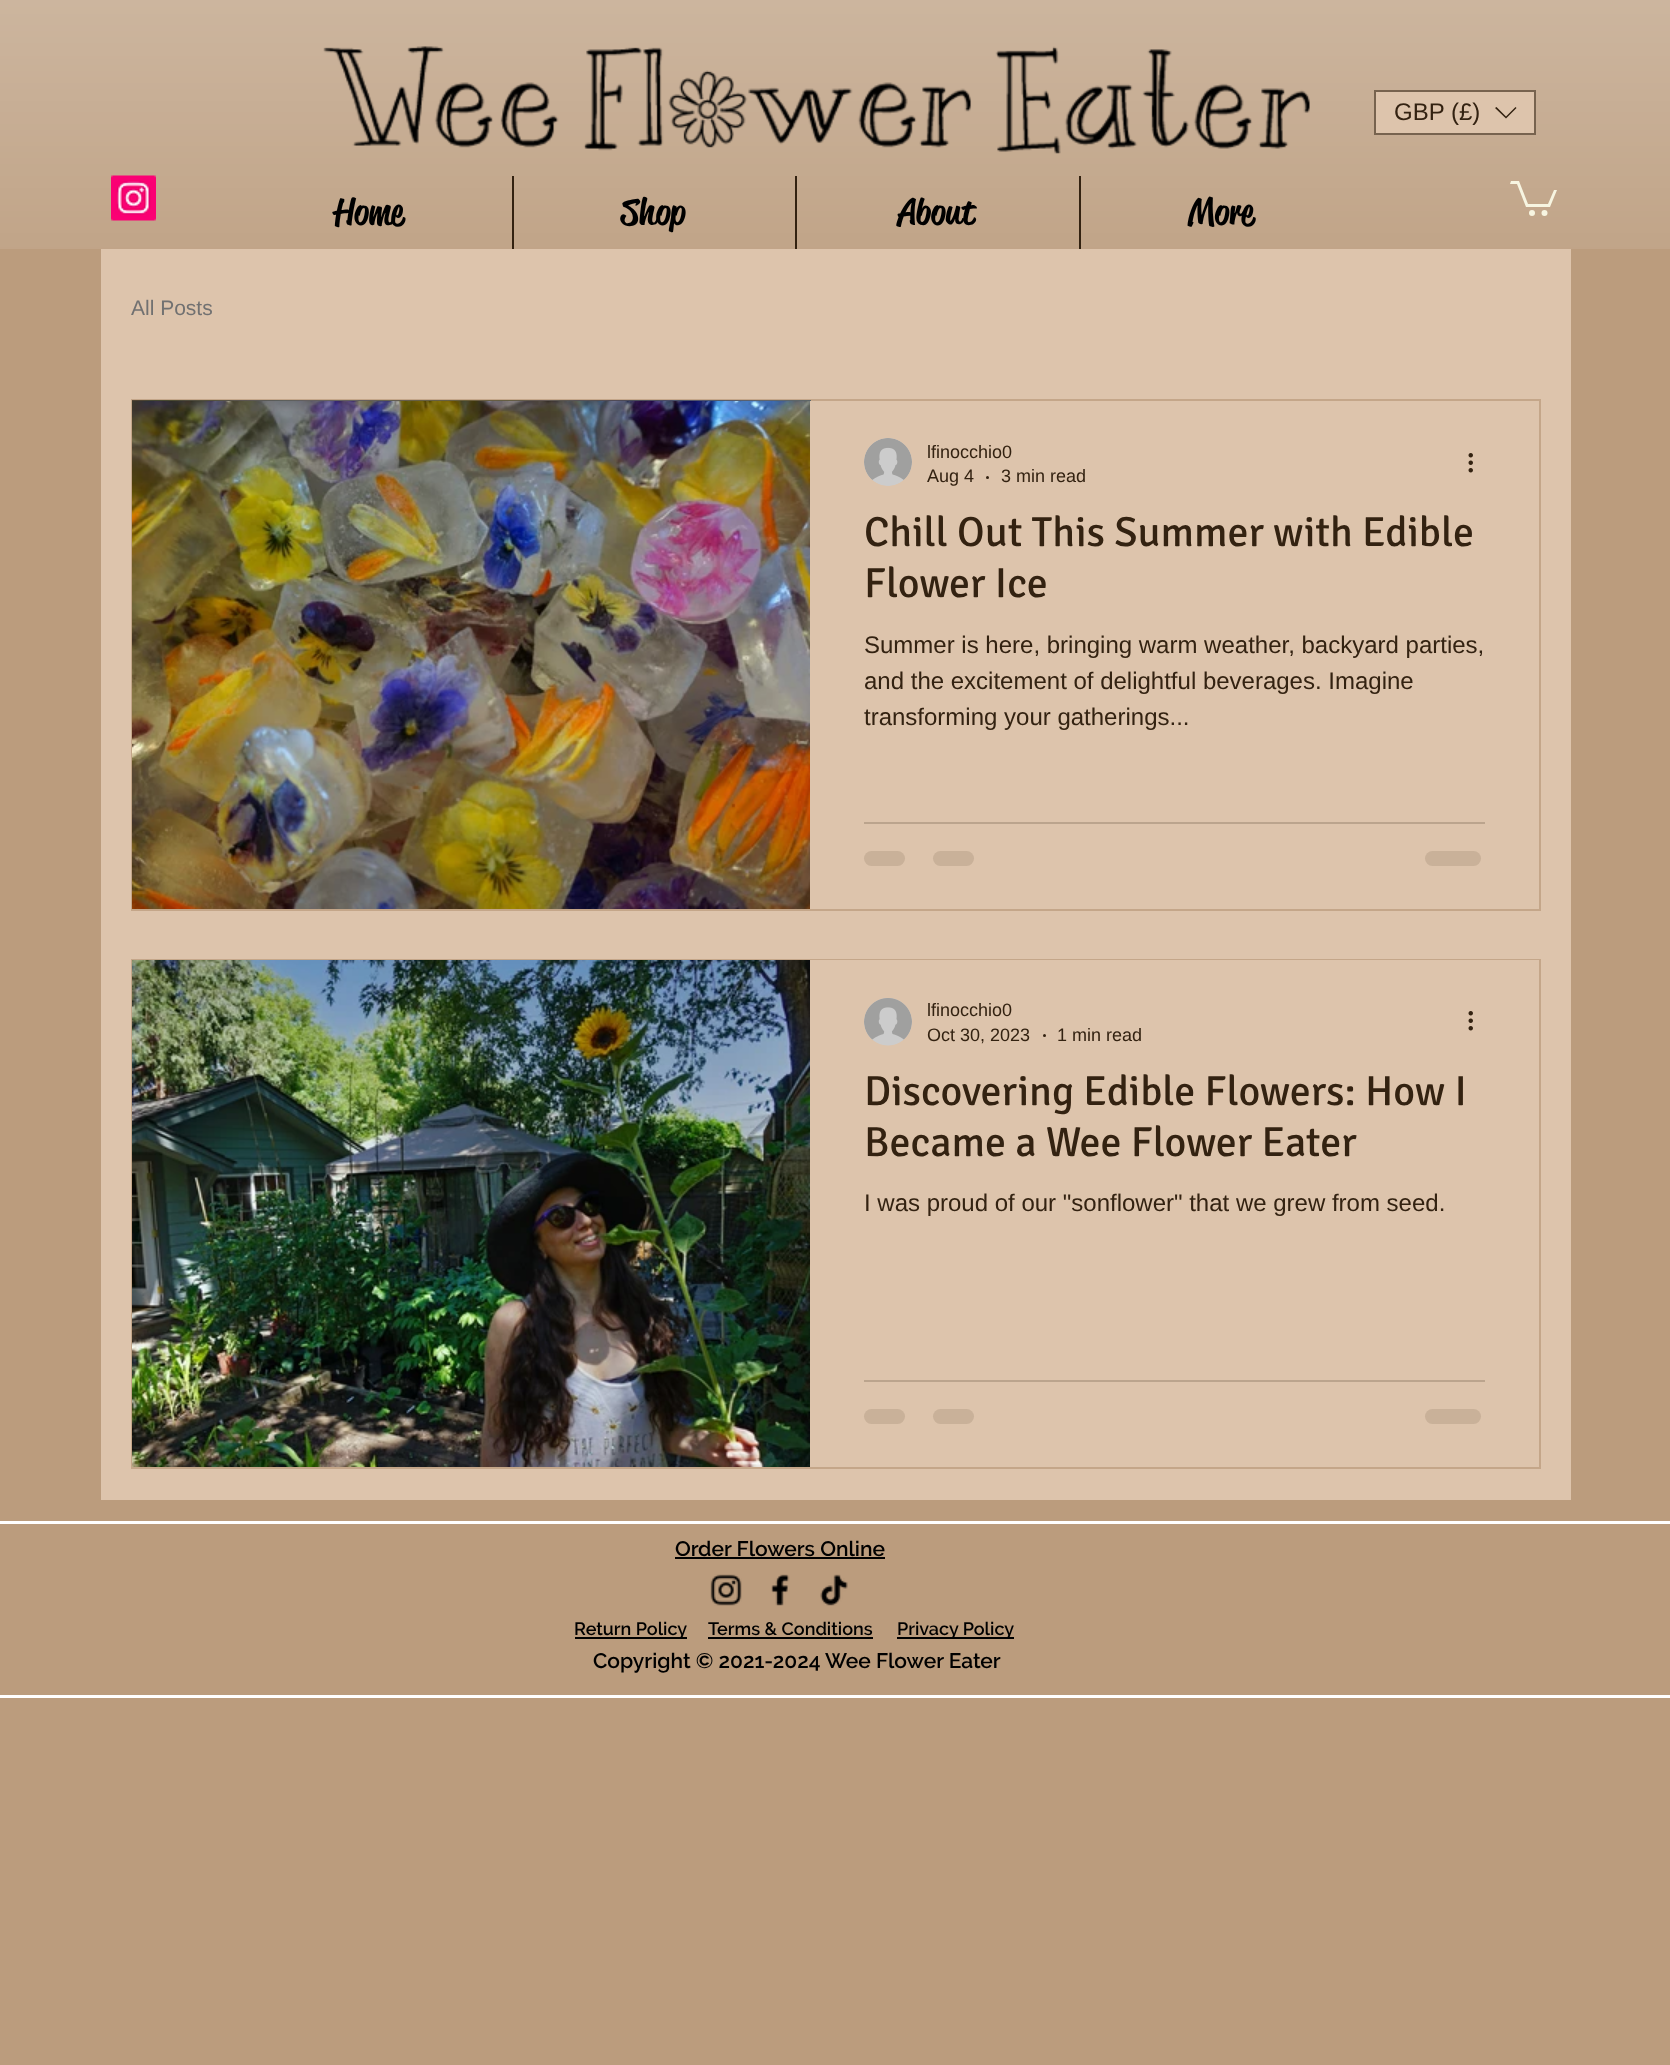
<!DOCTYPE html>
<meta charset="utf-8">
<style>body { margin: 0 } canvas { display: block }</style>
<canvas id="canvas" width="1670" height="2065"></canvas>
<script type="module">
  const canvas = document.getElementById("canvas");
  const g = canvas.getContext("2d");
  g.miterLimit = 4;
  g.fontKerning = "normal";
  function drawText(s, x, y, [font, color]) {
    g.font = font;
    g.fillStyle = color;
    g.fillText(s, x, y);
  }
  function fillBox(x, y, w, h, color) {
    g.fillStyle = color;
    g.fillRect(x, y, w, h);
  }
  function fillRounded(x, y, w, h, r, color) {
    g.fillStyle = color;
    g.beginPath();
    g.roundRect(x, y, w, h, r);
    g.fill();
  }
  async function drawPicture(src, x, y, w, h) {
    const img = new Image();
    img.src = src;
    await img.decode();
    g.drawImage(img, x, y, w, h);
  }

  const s1 = ["24px Liberation Sans", "#332211"];
  const s2 = ["500 36px 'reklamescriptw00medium'", "#000000"];
  const s3 = ["21px Liberation Sans", "#717171"];
  const s4 = ["18px Liberation Sans", "#332211"];
  const s5 = ["42px Signika", "#332211"];
  const s6 = ["600 21px Raleway", "#000000"];
  const s7 = ["600 18px Raleway", "#000000"];

  fillBox(0, 0, 1670, 2065, "#BB9C7D");
  await drawPicture("pic1.png", 0, 0, 1670, 249);
  await drawPicture("pic2.png", 323, 46, 987, 108);
  g.fillStyle = "#DDC4AC";
  g.beginPath();
  g.rect(1375, 91, 160, 43);
  g.fill();
  g.strokeStyle = "#77634F";
  g.lineWidth = 2;
  g.stroke();
  drawText("GBP (£)", 1394, 120, s1);
  g.beginPath();
  g.moveTo(1515.5, 107);
  g.lineTo(1516.5, 108);
  g.lineTo(1506, 118.5);
  g.lineTo(1495, 108);
  g.lineTo(1496.5, 107);
  g.lineTo(1506, 116.5);
  g.closePath();
  g.fill("evenodd");
  await drawPicture("pic3.png", 111, 175, 45, 46);
  drawText("Home", 334, 224, s2);
  fillBox(512, 176, 2, 73, "#332211");
  drawText("Shop", 621, 224, s2);
  fillBox(795, 176, 2, 73, "#332211");
  drawText("About", 898, 224, s2);
  fillBox(1079, 176, 2, 73, "#332211");
  drawText("More", 1188, 224, s2);
  g.fillStyle = "#F7F5E1";
  g.beginPath();
  g.moveTo(1557, 190);
  g.lineTo(1550, 207);
  g.lineTo(1526, 207);
  g.lineTo(1517, 184);
  g.lineTo(1510, 184);
  g.lineTo(1511, 181);
  g.lineTo(1519, 181);
  g.lineTo(1528, 204);
  g.lineTo(1548, 204);
  g.lineTo(1554, 190);
  g.fill();
  g.beginPath();
  g.arc(1544.5, 213, 3, 0, Math.PI * 2);
  g.fill();
  g.beginPath();
  g.arc(1532, 213, 3, 0, Math.PI * 2);
  g.fill();
  fillBox(101, 249, 1470, 1251, "#DDC4AC");
  drawText("All Posts", 131, 315, s3);
  g.strokeStyle = "#C4A689";
  g.strokeRect(132, 400, 1408, 510);
  await drawPicture("pic4.png", 132, 400, 679, 1);
  await drawPicture("pic5.png", 132, 401, 678, 508);
  await drawPicture("pic6.png", 864, 438, 48, 48);
  drawText("lfinocchio0", 927, 458, s4);
  drawText("Aug 4", 927, 482, s4);
  g.beginPath();
  g.arc(987.5, 477.5, 1.5, 0, Math.PI * 2);
  g.fill();
  drawText("3 min read", 1001, 482, s4);
  await drawPicture("pic7.png", 1468, 453, 5, 20);
  drawText("Chill Out This Summer with Edible", 864, 546, s5);
  drawText("Flower Ice", 864, 597, s5);
  drawText("Summer is here, bringing warm weather, backyard parties,", 864, 653, s1);
  drawText("and the excitement of delightful beverages. Imagine", 864, 689, s1);
  drawText("transforming your gatherings...", 864, 725, s1);
  fillBox(864, 822, 621, 2, "#BBA48D");
  fillRounded(864, 851, 41, 15, 7.5, "#C9B199");
  fillRounded(933, 851, 41, 15, 7.5, "#C9B199");
  fillRounded(1425, 851, 56, 15, 7.5, "#C9B199");
  g.strokeRect(132, 960, 1408, 508);
  await drawPicture("pic8.png", 132, 960, 678, 507);
  fillBox(810, 960, 729, 1, "#DDC4AC");
  await drawPicture("pic9.png", 864, 998, 48, 48);
  drawText("lfinocchio0", 927, 1016, s4);
  drawText("Oct 30, 2023", 927, 1041, s4);
  g.beginPath();
  g.arc(1044.5, 1035.5, 1.5, 0, Math.PI * 2);
  g.fill();
  drawText("1 min read", 1057, 1041, s4);
  await drawPicture("pic7.png", 1468, 1011, 5, 20);
  drawText("Discovering Edible Flowers: How I", 864, 1105, s5);
  drawText("Became a Wee Flower Eater", 864, 1156, s5);
  drawText("I was proud of our \"sonflower\" that we grew from seed.", 864, 1211, s1);
  fillBox(864, 1380, 621, 2, "#BBA48D");
  fillRounded(864, 1409, 41, 15, 7.5, "#C9B199");
  fillRounded(933, 1409, 41, 15, 7.5, "#C9B199");
  fillRounded(1425, 1409, 56, 15, 7.5, "#C9B199");
  fillBox(0, 1521, 1670, 3, "#FFFFFF");
  fillBox(0, 1695, 1670, 3, "#FFFFFF");
  drawText("Order Flowers Online", 675, 1556, s6);
  fillBox(675, 1557, 210, 2, "#000000");
  await drawPicture("pic10.png", 710, 1574, 32, 32);
  await drawPicture("pic11.png", 771, 1574, 19, 32);
  await drawPicture("pic12.png", 820, 1574, 28, 32);
  fillBox(575, 1637, 112, 2, "#000000");
  drawText("Return Policy", 574, 1635, s7);
  drawText("Terms & Conditions", 708, 1635, s7);
  fillBox(708, 1637, 165, 2, "#000000");
  fillBox(897, 1637, 117, 2, "#000000");
  drawText("Privacy Policy", 897, 1635, s7);
  drawText("Copyright © 2021-2024 Wee Flower Eater", 593, 1668, s6);
</script>
